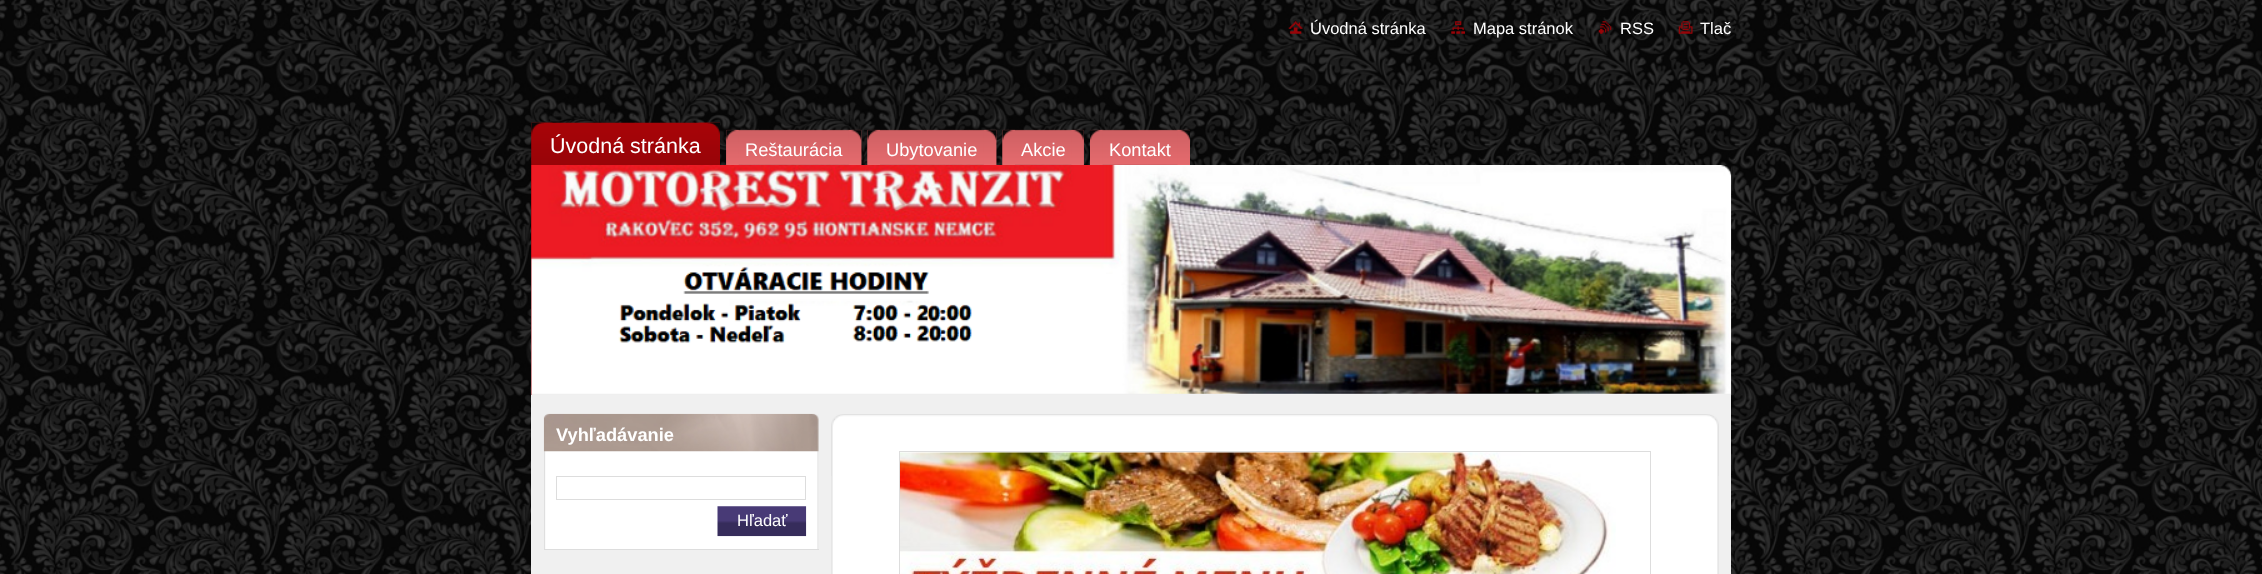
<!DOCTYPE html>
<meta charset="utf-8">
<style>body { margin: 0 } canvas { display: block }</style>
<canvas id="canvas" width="2262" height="574"></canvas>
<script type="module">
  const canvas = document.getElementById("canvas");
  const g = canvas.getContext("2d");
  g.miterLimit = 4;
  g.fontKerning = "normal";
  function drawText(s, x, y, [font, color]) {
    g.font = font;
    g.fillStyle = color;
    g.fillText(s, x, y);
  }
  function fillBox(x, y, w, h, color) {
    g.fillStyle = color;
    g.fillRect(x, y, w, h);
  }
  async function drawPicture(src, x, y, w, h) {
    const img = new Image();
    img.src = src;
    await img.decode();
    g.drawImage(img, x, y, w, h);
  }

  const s1 = ["16.5px Liberation Sans", "#FFFFFF"];
  const s2 = ["21.5px Liberation Sans", "#FFFFFF"];
  const s3 = ["18.25px Liberation Sans", "#FFFFFF"];
  const s4 = ["bold 18.25px Liberation Sans", "#FFFFFF"];

  fillBox(0, 0, 2262, 574, "#FFFFFF");
  await drawPicture("pic1.png", 0, 0, 2262, 574);
  await drawPicture("pic2.png", 1288, 21, 15, 13);
  drawText("Úvodná stránka", 1310, 34, s1);
  await drawPicture("pic3.png", 1451, 21, 14, 13);
  drawText("Mapa stránok", 1473, 34, s1);
  await drawPicture("pic4.png", 1598, 21, 14, 13);
  drawText("RSS", 1620, 34, s1);
  await drawPicture("pic5.png", 1678, 21, 15, 13);
  drawText("Tlač", 1700, 34, s1);
  await drawPicture("pic6.png", 531, 122, 189, 43);
  await drawPicture("pic7.png", 531, 122, 22, 43);
  await drawPicture("pic8.png", 698, 122, 22, 13);
  drawText("Úvodná stránka", 550, 153, s2);
  await drawPicture("pic9.png", 726, 129, 136, 36);
  await drawPicture("pic10.png", 726, 129, 13, 36);
  await drawPicture("pic11.png", 848, 129, 14, 36);
  drawText("Reštaurácia", 745, 156, s3);
  await drawPicture("pic12.png", 867, 129, 130, 36);
  await drawPicture("pic13.png", 867, 129, 13, 36);
  await drawPicture("pic14.png", 983, 129, 14, 36);
  drawText("Ubytovanie", 886, 156, s3);
  await drawPicture("pic15.png", 1002, 129, 82, 36);
  await drawPicture("pic16.png", 1002, 129, 13, 36);
  await drawPicture("pic17.png", 1071, 129, 13, 36);
  drawText("Akcie", 1021, 156, s3);
  await drawPicture("pic18.png", 1090, 129, 100, 36);
  await drawPicture("pic19.png", 1090, 129, 13, 36);
  await drawPicture("pic20.png", 1177, 129, 13, 36);
  drawText("Kontakt", 1109, 156, s3);
  fillBox(531, 165, 1, 230, "#990408");
  await drawPicture("pic21.png", 531, 165, 1201, 230);
  await drawPicture("pic22.png", 1720, 165, 11, 11);
  fillBox(531, 395, 1200, 179, "#F0F0F0");
  fillBox(818, 414, 1, 135, "#FFFFFF");
  await drawPicture("pic23.png", 544, 414, 275, 135);
  fillBox(544, 549, 275, 1, "#DDDDDD");
  await drawPicture("pic24.png", 543, 413, 276, 39);
  drawText("Vyhľadávanie", 556, 441, s4);
  g.strokeStyle = "#DDDDDD";
  g.strokeRect(556.5, 476.5, 249, 23);
  await drawPicture("pic25.png", 717, 506, 90, 31);
  drawText("Hľadať", 737, 526, s1);
  await drawPicture("pic26.png", 831, 414, 888, 62);
  await drawPicture("pic27.png", 831, 476, 888, 98);
  g.strokeRect(899.5, 451.5, 751, 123);
  await drawPicture("pic28.png", 900, 452, 716, 122);
</script>
